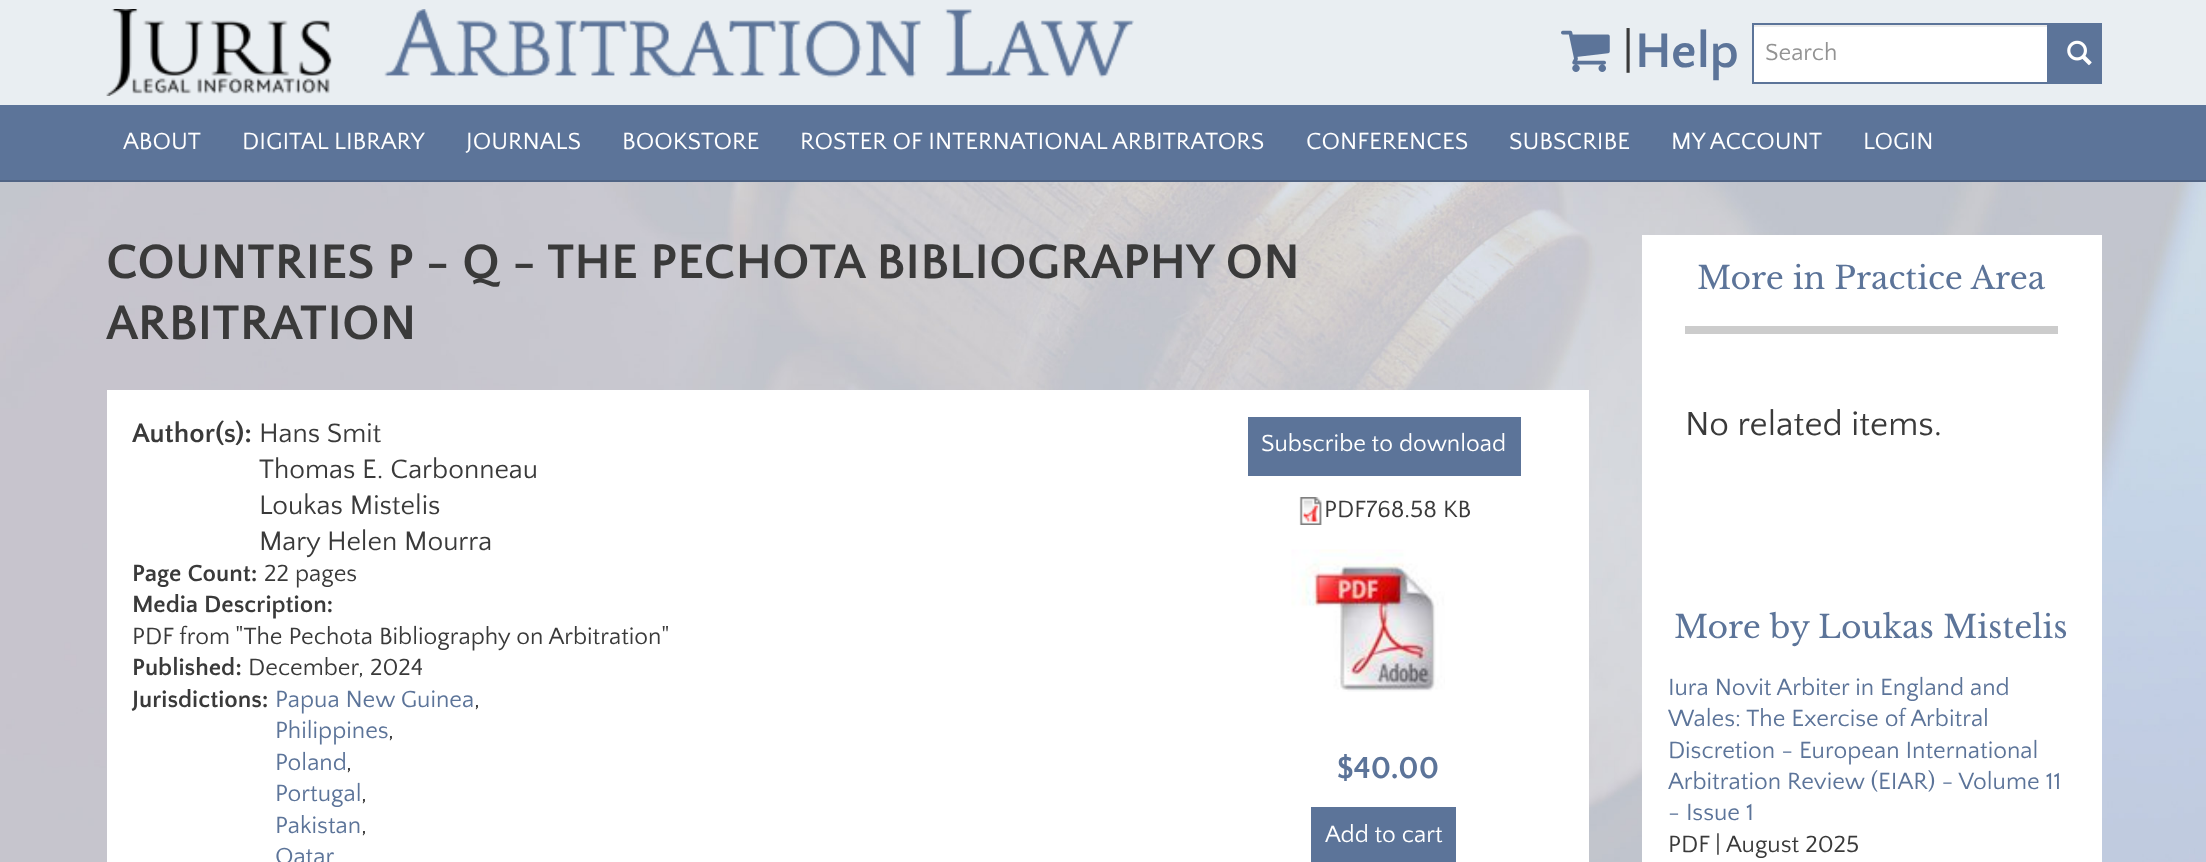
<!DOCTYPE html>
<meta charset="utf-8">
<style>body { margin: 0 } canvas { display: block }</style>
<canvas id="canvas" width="2206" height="862"></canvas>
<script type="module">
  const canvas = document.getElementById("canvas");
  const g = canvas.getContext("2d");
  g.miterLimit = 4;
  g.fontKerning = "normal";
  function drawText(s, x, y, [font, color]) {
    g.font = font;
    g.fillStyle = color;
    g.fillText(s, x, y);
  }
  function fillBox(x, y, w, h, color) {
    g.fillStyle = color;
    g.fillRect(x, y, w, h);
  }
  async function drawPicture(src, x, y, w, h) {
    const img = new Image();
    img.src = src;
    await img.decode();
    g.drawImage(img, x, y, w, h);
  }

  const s1 = ["50.75px Quattrocento Sans", "#3A3A3A"];
  const s2 = ["bold 50.75px Quattrocento Sans", "#5C7499"];
  const s3 = ["24.5px Quattrocento Sans", "#939393"];
  const s4 = ["24.5px Quattrocento Sans", "#FFFFFF"];
  const s5 = ["bold 50.75px Quattrocento Sans", "#3A3A3A"];
  const s6 = ["bold 28px Quattrocento Sans", "#3A3A3A"];
  const s7 = ["28px Quattrocento Sans", "#3A3A3A"];
  const s8 = ["bold 24.5px Quattrocento Sans", "#3A3A3A"];
  const s9 = ["24.5px Quattrocento Sans", "#3A3A3A"];
  const s10 = ["24.5px Quattrocento Sans", "#5C7499"];
  const s11 = ["bold 32px Quattrocento Sans", "#5C7499"];
  const s12 = ["31.5px Libre Baskerville", "#5C7499"];
  const s13 = ["35px Quattrocento Sans", "#3A3A3A"];

  fillBox(0, 0, 2206, 862, "#FFFFFF");
  await drawPicture("pic1.png", 0, 182, 2206, 680);
  fillBox(0, 0, 2206, 105, "#E9EEF2");
  await drawPicture("pic2.png", 106, 9, 1028, 87);
  await drawPicture("pic3.png", 1561, 30, 49, 42);
  drawText("|", 1622, 67, s1);
  drawText("Help", 1635, 67, s2);
  fillBox(1754, 27, 293, 55, "#FFFFFF");
  fillBox(1754, 25, 294, 2, "#ECECEC");
  g.strokeStyle = "#5C7499";
  g.lineWidth = 2;
  g.strokeRect(1753, 24, 295, 59);
  drawText("Search", 1765, 60, s3);
  fillBox(2049, 23, 53, 61, "#5C7499");
  await drawPicture("pic4.png", 2067, 40, 25, 26);
  fillBox(0, 105, 2206, 75, "#5C7499");
  fillBox(0, 180, 2206, 2, "#506484");
  drawText("ABOUT", 123, 149, s4);
  drawText("DIGITAL LIBRARY", 242, 149, s4);
  drawText("JOURNALS", 466, 149, s4);
  drawText("BOOKSTORE", 622, 149, s4);
  drawText("ROSTER OF INTERNATIONAL ARBITRATORS", 800, 149, s4);
  drawText("CONFERENCES", 1306, 149, s4);
  drawText("SUBSCRIBE", 1509, 149, s4);
  drawText("MY ACCOUNT", 1671, 149, s4);
  drawText("LOGIN", 1863, 149, s4);
  drawText("COUNTRIES P - Q - THE PECHOTA BIBLIOGRAPHY ON", 106, 278, s5);
  drawText("ARBITRATION", 106, 339, s5);
  fillBox(107, 390, 1482, 472, "#FFFFFF");
  drawText("Author(s):", 132, 442, s6);
  drawText("Hans Smit", 259, 442, s7);
  drawText("Thomas E. Carbonneau", 259, 478, s7);
  drawText("Loukas Mistelis", 259, 514, s7);
  drawText("Mary Helen Mourra", 259, 550, s7);
  drawText("Page Count:", 132, 581, s8);
  drawText("22 pages", 264, 581, s9);
  drawText("Media Description:", 132, 612, s8);
  drawText("PDF from \"The Pechota Bibliography on Arbitration\"", 132, 644, s9);
  drawText("Published:", 132, 675, s8);
  drawText("December, 2024", 248, 675, s9);
  drawText("Jurisdictions:", 132, 707, s8);
  drawText("Papua New Guinea", 275, 707, s10);
  drawText(",", 474, 707, s9);
  drawText("Philippines", 275, 738, s10);
  drawText(",", 388, 738, s9);
  drawText("Poland", 275, 770, s10);
  drawText(",", 346, 770, s9);
  drawText("Portugal", 275, 801, s10);
  drawText(",", 361, 801, s9);
  drawText("Pakistan", 275, 833, s10);
  drawText(",", 361, 833, s9);
  drawText("Qatar", 275, 864, s10);
  fillBox(1248, 417, 273, 59, "#5C7499");
  drawText("Subscribe to download", 1261, 451, s4);
  await drawPicture("pic5.png", 1299, 497, 23, 28);
  drawText("PDF768.58 KB", 1324, 517, s9);
  await drawPicture("pic6.png", 1291, 549, 154, 143);
  drawText("$40.00", 1337, 778, s11);
  fillBox(1311, 807, 145, 55, "#5C7499");
  drawText("Add to cart", 1325, 842, s4);
  fillBox(1642, 235, 460, 627, "#FFFFFF");
  drawText("More in Practice Area", 1697, 289, s12);
  fillBox(1685, 326, 373, 8, "#CCCCCC");
  drawText("No related items.", 1685, 435, s13);
  drawText("More by Loukas Mistelis", 1674, 638, s12);
  drawText("Iura Novit Arbiter in England and", 1668, 695, s10);
  drawText("Wales: The Exercise of Arbitral", 1668, 726, s10);
  drawText("Discretion - European International", 1668, 758, s10);
  drawText("Arbitration Review (EIAR) - Volume 11", 1668, 789, s10);
  drawText("- Issue 1", 1668, 820, s10);
  drawText("PDF", 1668, 852, s9);
  drawText("|", 1715, 852, s9);
  drawText("August 2025", 1726, 852, s9);
</script>
